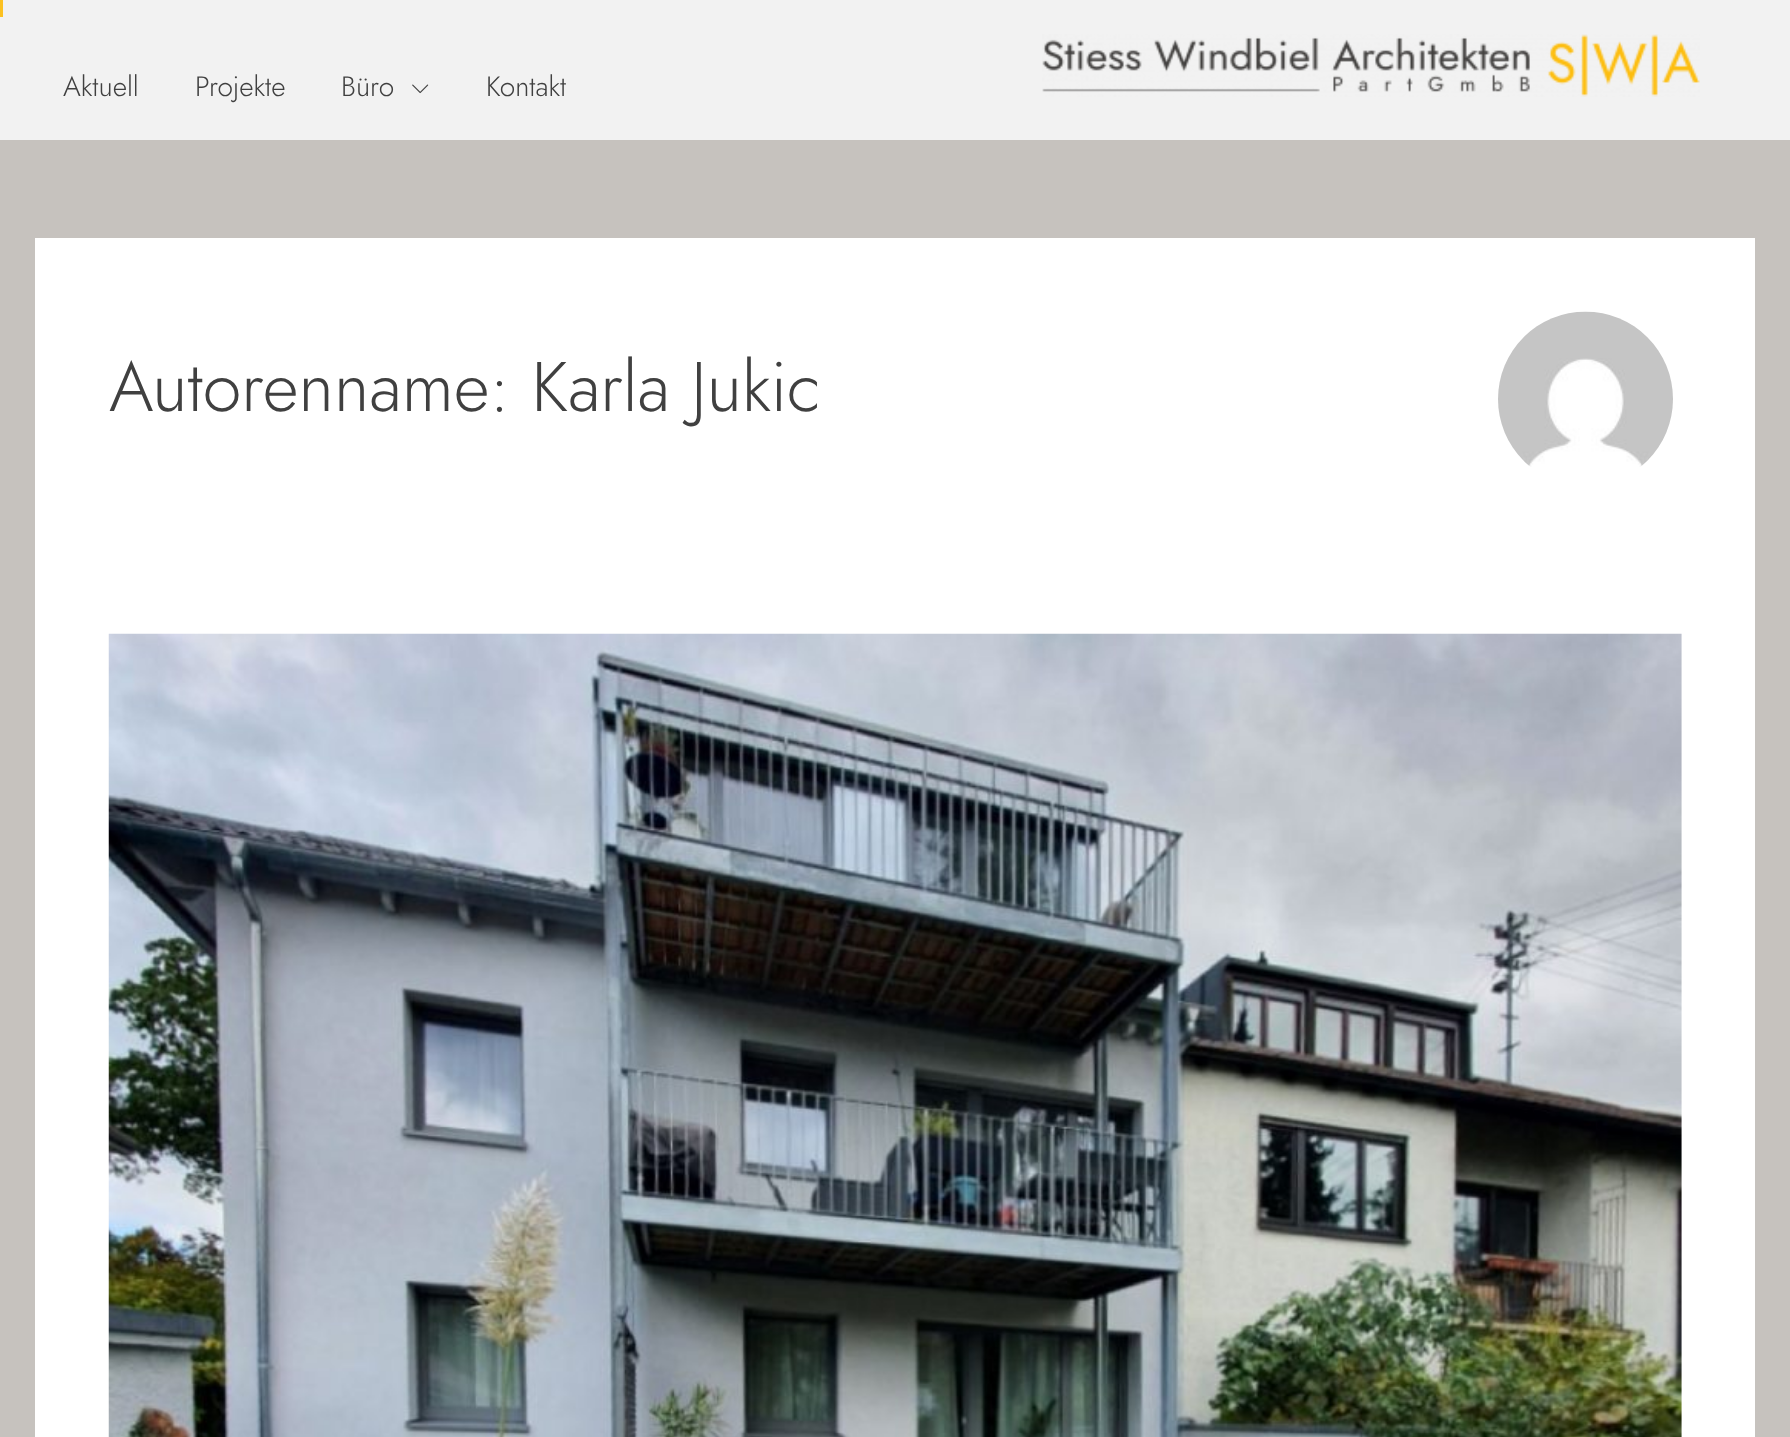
<!DOCTYPE html>
<meta charset="utf-8">
<style>body { margin: 0 } canvas { display: block }</style>
<canvas id="canvas" width="1790" height="1437"></canvas>
<script type="module">
  const canvas = document.getElementById("canvas");
  const g = canvas.getContext("2d");
  g.miterLimit = 4;
  g.fontKerning = "normal";
  function drawText(s, x, y, [font, color]) {
    g.font = font;
    g.fillStyle = color;
    g.fillText(s, x, y);
  }
  function fillBox(x, y, w, h, color) {
    g.fillStyle = color;
    g.fillRect(x, y, w, h);
  }
  async function drawPicture(src, x, y, w, h) {
    const img = new Image();
    img.src = src;
    await img.decode();
    g.drawImage(img, x, y, w, h);
  }

  const s1 = ["300 28px Jost", "#404040"];
  const s2 = ["300 70px Jost", "#404040"];

  fillBox(0, 0, 1790, 1437, "#C6C2BE");
  fillBox(0, 0, 1790, 140, "#F2F2F2");
  fillBox(0, 0, 3, 17, "#FCC121");
  drawText("Aktuell", 63, 96, s1);
  drawText("Projekte", 195, 96, s1);
  drawText("Büro", 341, 96, s1);
  await drawPicture("pic1.png", 412, 84, 17, 10);
  drawText("Kontakt", 486, 96, s1);
  await drawPicture("pic2.png", 1042, 34, 658, 63);
  fillBox(35, 238, 1720, 1199, "#FFFFFF");
  drawText("Autorenname: Karla Jukic", 109, 411, s2);
  await drawPicture("pic3.png", 1498, 311, 175, 156);
  await drawPicture("pic4.png", 108, 633, 1574, 804);
</script>
